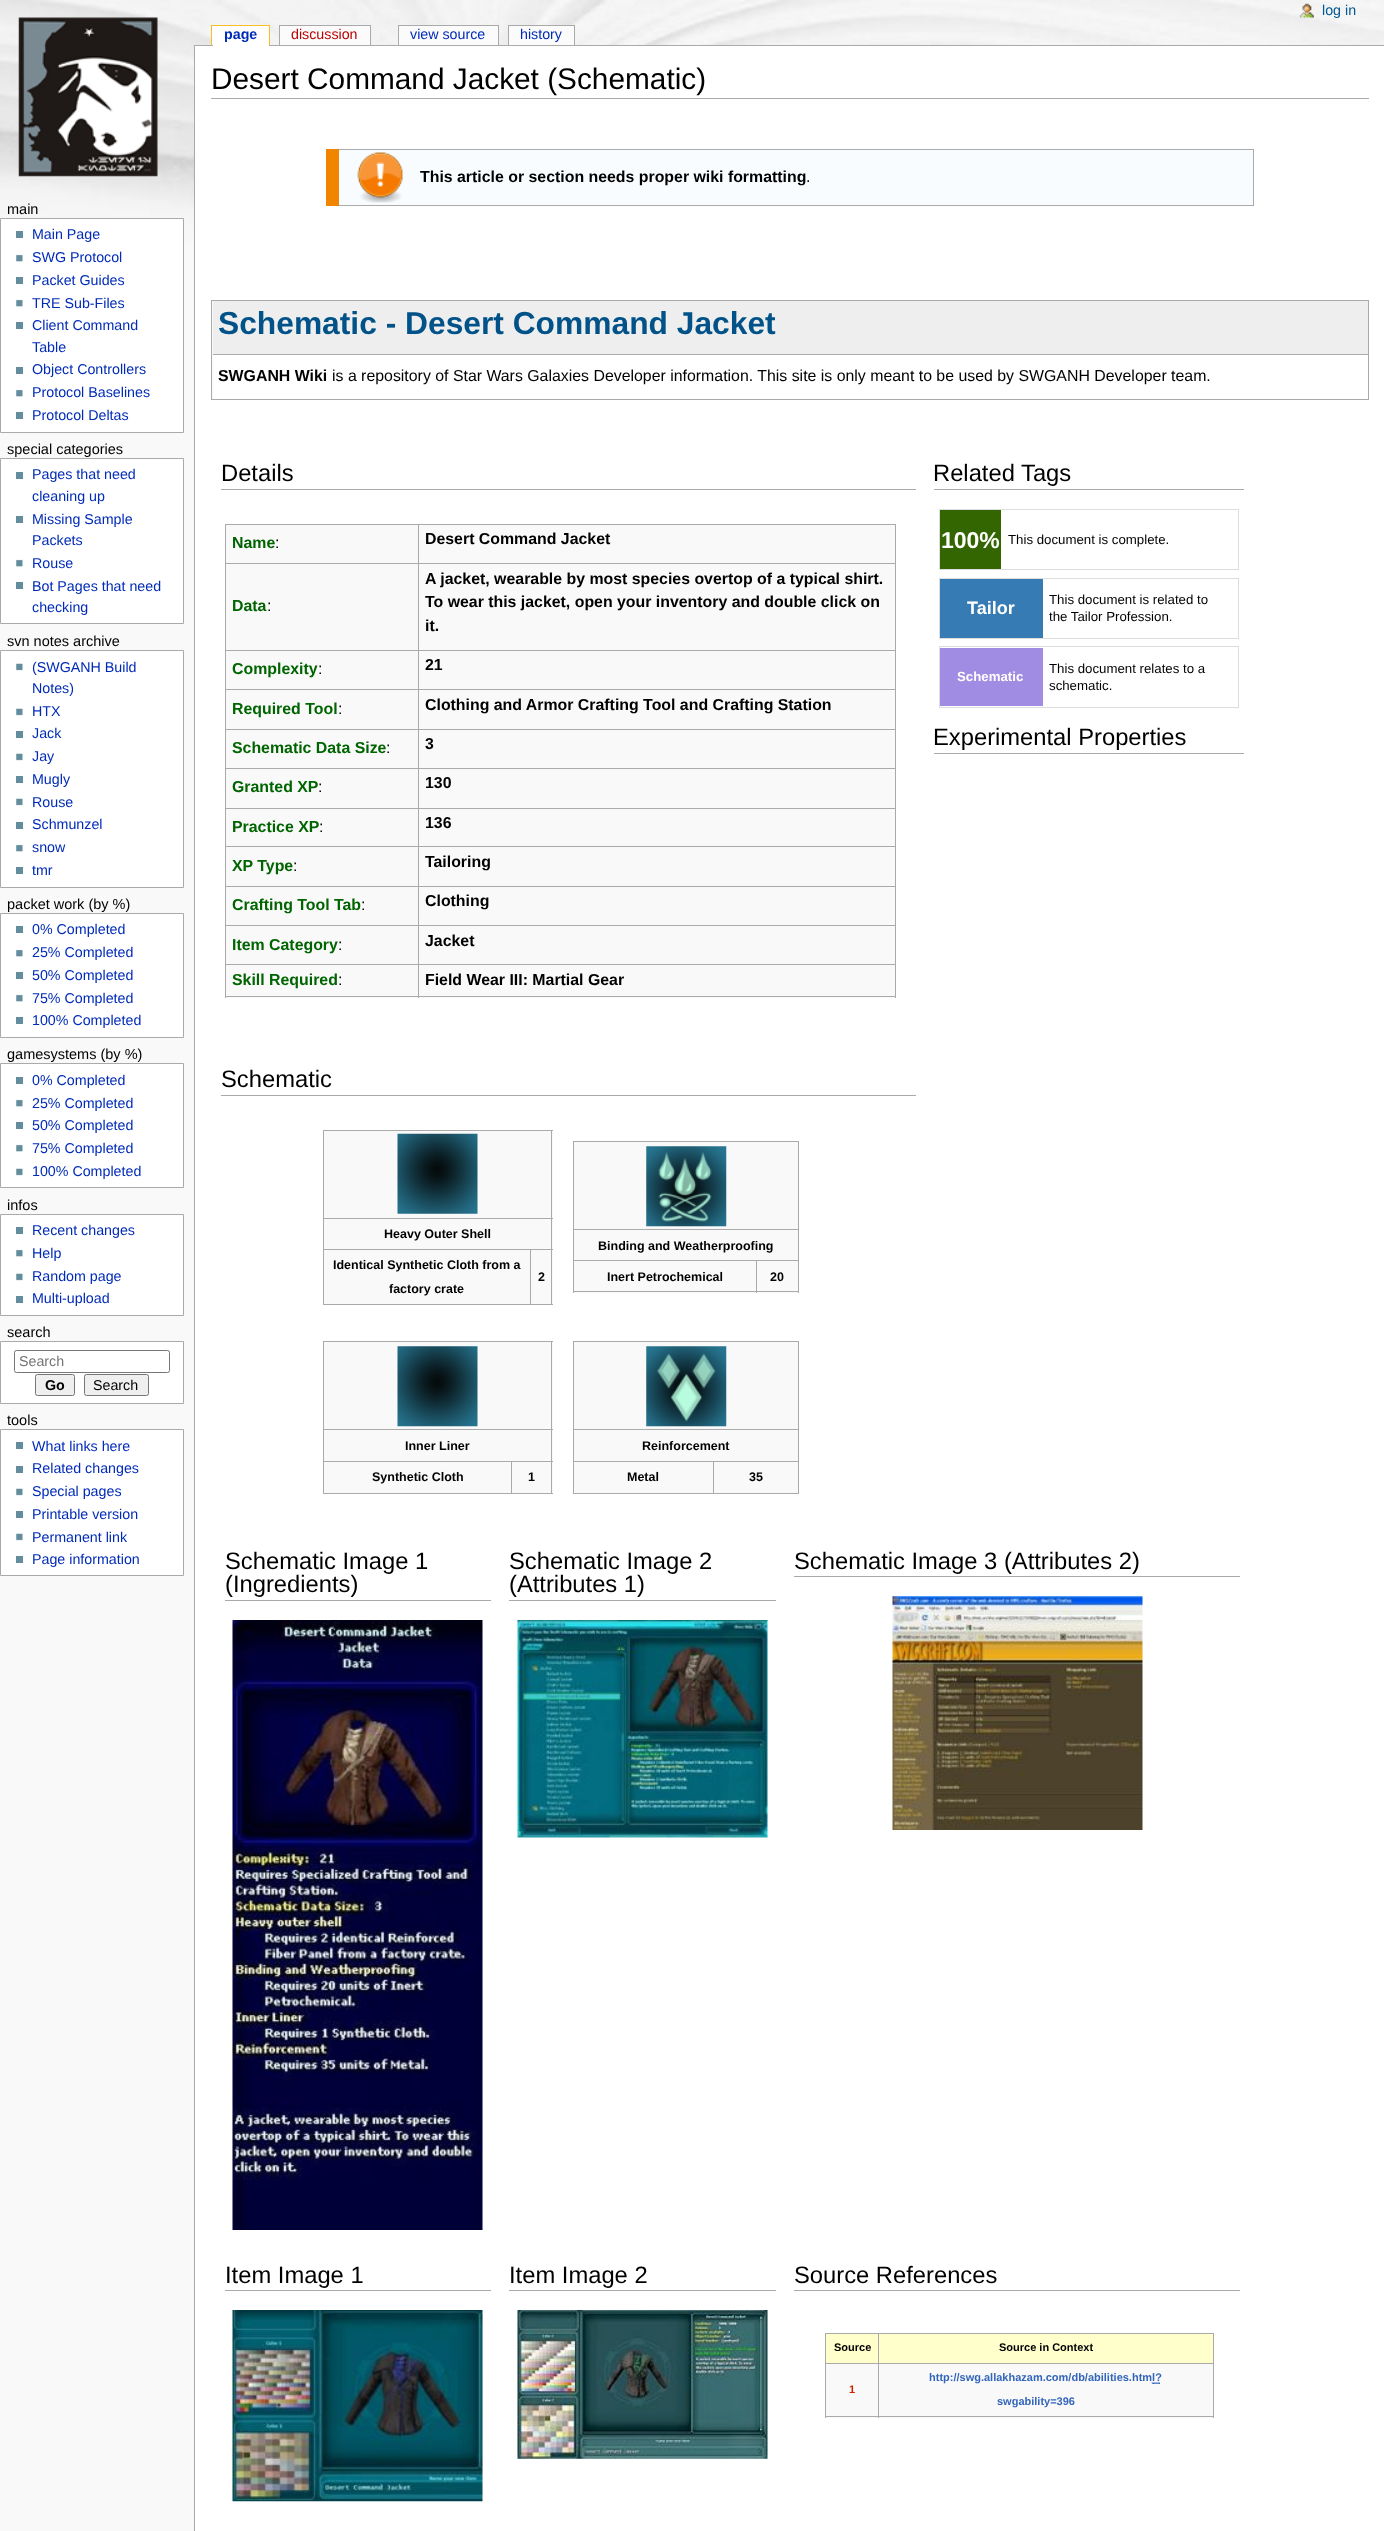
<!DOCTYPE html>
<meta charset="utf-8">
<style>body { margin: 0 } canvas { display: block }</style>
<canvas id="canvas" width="1384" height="2531"></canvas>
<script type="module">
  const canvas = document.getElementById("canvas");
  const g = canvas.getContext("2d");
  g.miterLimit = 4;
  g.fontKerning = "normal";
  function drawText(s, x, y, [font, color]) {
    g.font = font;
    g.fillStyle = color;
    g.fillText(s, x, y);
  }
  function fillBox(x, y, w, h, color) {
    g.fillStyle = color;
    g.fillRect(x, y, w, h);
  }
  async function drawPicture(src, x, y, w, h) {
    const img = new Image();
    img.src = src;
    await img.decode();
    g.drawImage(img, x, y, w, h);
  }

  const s1 = ["14.25px Liberation Sans", "#005896"];
  const s2 = ["bold 14.25px Liberation Sans", "#002BB8"];
  const s3 = ["14.25px Liberation Sans", "#BA0000"];
  const s4 = ["14.25px Liberation Sans", "#002BB8"];
  const s5 = ["14.5px Liberation Sans", "#000000"];
  const s6 = ["14.25px Liberation Sans", "#757575"];
  const s7 = ["bold 14.25px Liberation Sans", "#000000"];
  const s8 = ["14.25px Liberation Sans", "#000000"];
  const s9 = ["29.8px Liberation Sans", "#000000"];
  const s10 = ["bold 15.88px Liberation Sans", "#000000"];
  const s11 = ["15.88px Liberation Sans", "#000000"];
  const s12 = ["bold 31.75px Liberation Sans", "#005288"];
  const s13 = ["23.75px Liberation Sans", "#000000"];
  const s14 = ["bold 15.88px Liberation Sans", "#006400"];
  const s15 = ["bold 12.5px Liberation Sans", "#000000"];
  const s16 = ["bold 23px Liberation Sans", "#FFFFFF"];
  const s17 = ["13.25px Liberation Sans", "#000000"];
  const s18 = ["bold 18px Liberation Sans", "#FFFFFF"];
  const s19 = ["bold 13.25px Liberation Sans", "#FFFFFF"];
  const s20 = ["bold 11px Liberation Sans", "#000000"];
  const s21 = ["bold 11px Liberation Sans", "#CC2200"];
  const s22 = ["bold 11px Liberation Sans", "#3366BB"];

  fillBox(0, 0, 1384, 2531, "#F9F9F9");
  await drawPicture("pic1.png", 0, 0, 1384, 243);
  await drawPicture("pic2.png", 1299, 3, 15, 15);
  drawText("log in", 1322, 15, s1);
  await drawPicture("pic3.png", 18, 17, 140, 160);
  fillBox(194, 45, 1190, 1, "#AAAAAA");
  fillBox(213, 26, 56, 20, "#FFFFFF");
  drawText("page", 224, 39, s2);
  fillBox(212, 26, 1, 19, "#FFFFFF");
  fillBox(211, 25, 59, 1, "#FABD23");
  fillBox(269, 25, 1, 20, "#FABD23");
  fillBox(211, 25, 1, 20, "#FABD23");
  fillBox(280, 26, 90, 19, "#FBFBFB");
  drawText("discussion", 291, 39, s3);
  fillBox(279, 25, 92, 1, "#AAAAAA");
  fillBox(370, 25, 1, 20, "#AAAAAA");
  fillBox(279, 25, 1, 20, "#AAAAAA");
  fillBox(399, 26, 99, 19, "#FBFBFB");
  drawText("view source", 410, 39, s4);
  fillBox(398, 25, 101, 1, "#AAAAAA");
  fillBox(498, 25, 1, 20, "#AAAAAA");
  fillBox(398, 25, 1, 20, "#AAAAAA");
  fillBox(509, 26, 65, 19, "#FBFBFB");
  drawText("history", 520, 39, s4);
  fillBox(508, 25, 67, 1, "#AAAAAA");
  fillBox(574, 25, 1, 20, "#AAAAAA");
  fillBox(508, 25, 1, 20, "#AAAAAA");
  drawText("main", 7, 214, s5);
  g.fillStyle = "#FFFFFF";
  g.beginPath();
  g.rect(0.5, 218.5, 183, 214);
  g.fill();
  g.strokeStyle = "#AAAAAA";
  g.stroke();
  fillBox(16, 231, 7, 7, "#638C9C");
  drawText("Main Page", 32, 239, s4);
  await drawPicture("pic4.png", 16, 254, 7, 8);
  drawText("SWG Protocol", 32, 262, s4);
  fillBox(16, 277, 7, 7, "#638C9C");
  drawText("Packet Guides", 32, 285, s4);
  await drawPicture("pic4.png", 16, 299, 7, 8);
  drawText("TRE Sub-Files", 32, 308, s4);
  fillBox(16, 322, 7, 7, "#638C9C");
  drawText("Client Command", 32, 330, s4);
  drawText("Table", 32, 352, s4);
  fillBox(16, 367, 7, 7, "#638C9C");
  drawText("Object Controllers", 32, 374, s4);
  await drawPicture("pic4.png", 16, 389, 7, 8);
  drawText("Protocol Baselines", 32, 397, s4);
  fillBox(16, 412, 7, 7, "#638C9C");
  drawText("Protocol Deltas", 32, 420, s4);
  drawText("special categories", 7, 454, s5);
  g.fillStyle = "#FFFFFF";
  g.beginPath();
  g.rect(0.5, 458.5, 183, 165);
  g.fill();
  g.stroke();
  fillBox(16, 472, 7, 7, "#638C9C");
  drawText("Pages that need", 32, 479, s4);
  drawText("cleaning up", 32, 501, s4);
  fillBox(16, 516, 7, 7, "#638C9C");
  drawText("Missing Sample", 32, 524, s4);
  drawText("Packets", 32, 545, s4);
  await drawPicture("pic4.png", 16, 559, 7, 8);
  drawText("Rouse", 32, 568, s4);
  fillBox(16, 582, 7, 7, "#638C9C");
  drawText("Bot Pages that need", 32, 591, s4);
  drawText("checking", 32, 612, s4);
  drawText("svn notes archive", 7, 646, s5);
  g.fillStyle = "#FFFFFF";
  g.beginPath();
  g.rect(0.5, 650.5, 183, 237);
  g.fill();
  g.stroke();
  await drawPicture("pic5.png", 16, 663, 7, 8);
  drawText("(SWGANH Build", 32, 672, s4);
  drawText("Notes)", 32, 693, s4);
  await drawPicture("pic5.png", 16, 708, 7, 8);
  drawText("HTX", 32, 716, s4);
  fillBox(16, 731, 7, 7, "#638C9C");
  drawText("Jack", 32, 738, s4);
  await drawPicture("pic5.png", 16, 753, 7, 8);
  drawText("Jay", 32, 761, s4);
  fillBox(16, 776, 7, 7, "#638C9C");
  drawText("Mugly", 32, 784, s4);
  await drawPicture("pic5.png", 16, 798, 7, 8);
  drawText("Rouse", 32, 807, s4);
  fillBox(16, 822, 7, 7, "#638C9C");
  drawText("Schmunzel", 32, 829, s4);
  await drawPicture("pic4.png", 16, 844, 7, 8);
  drawText("snow", 32, 852, s4);
  fillBox(16, 867, 7, 7, "#638C9C");
  drawText("tmr", 32, 875, s4);
  drawText("packet work (by %)", 7, 909, s5);
  g.fillStyle = "#FFFFFF";
  g.beginPath();
  g.rect(0.5, 913.5, 183, 124);
  g.fill();
  g.stroke();
  fillBox(16, 926, 7, 7, "#638C9C");
  drawText("0% Completed", 32, 934, s4);
  await drawPicture("pic4.png", 16, 949, 7, 8);
  drawText("25% Completed", 32, 957, s4);
  fillBox(16, 972, 7, 7, "#638C9C");
  drawText("50% Completed", 32, 980, s4);
  await drawPicture("pic4.png", 16, 994, 7, 8);
  drawText("75% Completed", 32, 1003, s4);
  fillBox(16, 1017, 7, 7, "#638C9C");
  drawText("100% Completed", 32, 1025, s4);
  drawText("gamesystems (by %)", 7, 1059, s5);
  g.fillStyle = "#FFFFFF";
  g.beginPath();
  g.rect(0.5, 1063.5, 183, 124);
  g.fill();
  g.stroke();
  fillBox(16, 1077, 7, 7, "#638C9C");
  drawText("0% Completed", 32, 1085, s4);
  await drawPicture("pic4.png", 16, 1099, 7, 8);
  drawText("25% Completed", 32, 1108, s4);
  fillBox(16, 1122, 7, 7, "#638C9C");
  drawText("50% Completed", 32, 1130, s4);
  await drawPicture("pic4.png", 16, 1144, 7, 8);
  drawText("75% Completed", 32, 1153, s4);
  await drawPicture("pic5.png", 16, 1168, 7, 8);
  drawText("100% Completed", 32, 1176, s4);
  drawText("infos", 7, 1210, s5);
  g.fillStyle = "#FFFFFF";
  g.beginPath();
  g.rect(0.5, 1214.5, 183, 101);
  g.fill();
  g.stroke();
  fillBox(16, 1227, 7, 7, "#638C9C");
  drawText("Recent changes", 32, 1235, s4);
  await drawPicture("pic4.png", 16, 1249, 7, 8);
  drawText("Help", 32, 1258, s4);
  await drawPicture("pic5.png", 16, 1273, 7, 8);
  drawText("Random page", 32, 1281, s4);
  fillBox(16, 1296, 7, 7, "#638C9C");
  drawText("Multi-upload", 32, 1303, s4);
  drawText("search", 7, 1337, s5);
  g.fillStyle = "#FFFFFF";
  g.beginPath();
  g.rect(0.5, 1341.5, 183, 62);
  g.fill();
  g.stroke();
  g.beginPath();
  g.roundRect(14.5, 1350.5, 155, 22, 2);
  g.strokeStyle = "#767676";
  g.stroke();
  drawText("Search", 19, 1366, s6);
  g.fillStyle = "#EFEFEF";
  g.beginPath();
  g.roundRect(35.5, 1374.5, 39, 21, 2);
  g.fill();
  g.stroke();
  drawText("Go", 45, 1390, s7);
  g.fillStyle = "#EFEFEF";
  g.beginPath();
  g.roundRect(84.5, 1374.5, 64, 21, 2);
  g.fill();
  g.stroke();
  drawText("Search", 93, 1390, s8);
  drawText("tools", 7, 1425, s5);
  g.fillStyle = "#FFFFFF";
  g.beginPath();
  g.rect(0.5, 1429.5, 183, 146);
  g.fill();
  g.strokeStyle = "#AAAAAA";
  g.stroke();
  fillBox(16, 1442, 7, 7, "#638C9C");
  drawText("What links here", 32, 1451, s4);
  fillBox(16, 1466, 7, 7, "#638C9C");
  drawText("Related changes", 32, 1473, s4);
  await drawPicture("pic5.png", 16, 1488, 7, 8);
  drawText("Special pages", 32, 1496, s4);
  fillBox(16, 1511, 7, 7, "#638C9C");
  drawText("Printable version", 32, 1519, s4);
  await drawPicture("pic5.png", 16, 1533, 7, 8);
  drawText("Permanent link", 32, 1542, s4);
  fillBox(16, 1556, 7, 7, "#638C9C");
  drawText("Page information", 32, 1564, s4);
  fillBox(195, 46, 1189, 2485, "#FFFFFF");
  fillBox(194, 45, 1, 2486, "#AAAAAA");
  fillBox(211, 98, 1158, 1, "#AAAAAA");
  drawText("Desert Command Jacket (Schematic)", 211, 89, s9);
  fillBox(339, 150, 914, 55, "#F8FCFF");
  fillBox(339, 149, 915, 1, "#AAAAAA");
  fillBox(1253, 149, 1, 57, "#AAAAAA");
  fillBox(339, 205, 915, 1, "#AAAAAA");
  fillBox(326, 149, 13, 57, "#F28500");
  await drawPicture("pic6.png", 357, 152, 46, 51);
  drawText("This article or section needs proper wiki formatting", 420, 182, s10);
  drawText(".", 806, 182, s11);
  fillBox(212, 301, 1, 98, "#F9F9F9");
  g.strokeRect(211.5, 300.5, 1157, 99);
  fillBox(213, 301, 1155, 53, "#EEEEEE");
  fillBox(213, 354, 1155, 1, "#AAAAAA");
  drawText("Schematic - Desert Command Jacket", 218, 334, s12);
  drawText("SWGANH Wiki", 218, 381, s10);
  drawText("is a repository of Star Wars Galaxies Developer information. This site is only meant to be used by SWGANH Developer team.", 332, 381, s11);
  fillBox(221, 489, 695, 1, "#AAAAAA");
  drawText("Details", 221, 481, s13);
  fillBox(226, 525, 669, 473, "#F9F9F9");
  fillBox(225, 524, 671, 1, "#AAAAAA");
  fillBox(895, 524, 1, 474, "#AAAAAA");
  fillBox(225, 996, 671, 1, "#AAAAAA");
  fillBox(225, 524, 1, 474, "#AAAAAA");
  drawText("Name", 232, 548, s14);
  drawText(":", 275, 548, s11);
  fillBox(418, 563, 478, 1, "#AAAAAA");
  fillBox(418, 650, 478, 1, "#AAAAAA");
  fillBox(418, 689, 478, 1, "#AAAAAA");
  fillBox(418, 729, 478, 1, "#AAAAAA");
  fillBox(418, 768, 478, 1, "#AAAAAA");
  fillBox(418, 808, 478, 1, "#AAAAAA");
  fillBox(418, 846, 478, 1, "#AAAAAA");
  fillBox(418, 886, 478, 1, "#AAAAAA");
  fillBox(418, 925, 478, 1, "#AAAAAA");
  fillBox(418, 964, 478, 1, "#AAAAAA");
  fillBox(418, 964, 1, 34, "#AAAAAA");
  fillBox(225, 964, 194, 1, "#AAAAAA");
  fillBox(418, 925, 1, 40, "#AAAAAA");
  fillBox(225, 925, 194, 1, "#AAAAAA");
  fillBox(418, 886, 1, 40, "#AAAAAA");
  fillBox(225, 886, 194, 1, "#AAAAAA");
  fillBox(418, 846, 1, 42, "#AAAAAA");
  fillBox(225, 846, 194, 1, "#AAAAAA");
  fillBox(418, 808, 1, 40, "#AAAAAA");
  fillBox(225, 808, 194, 1, "#AAAAAA");
  fillBox(418, 768, 1, 41, "#AAAAAA");
  fillBox(225, 768, 194, 1, "#AAAAAA");
  fillBox(418, 729, 1, 40, "#AAAAAA");
  fillBox(225, 729, 194, 1, "#AAAAAA");
  fillBox(418, 689, 1, 41, "#AAAAAA");
  fillBox(225, 689, 194, 1, "#AAAAAA");
  fillBox(418, 650, 1, 40, "#AAAAAA");
  fillBox(225, 650, 194, 1, "#AAAAAA");
  fillBox(418, 563, 1, 88, "#AAAAAA");
  fillBox(225, 563, 194, 1, "#AAAAAA");
  fillBox(418, 524, 1, 40, "#AAAAAA");
  drawText("Desert Command Jacket", 425, 544, s10);
  drawText("Data", 232, 611, s14);
  drawText(":", 267, 611, s11);
  drawText("A jacket, wearable by most species overtop of a typical shirt.", 425, 584, s10);
  drawText("To wear this jacket, open your inventory and double click on", 425, 607, s10);
  drawText("it.", 425, 631, s10);
  drawText("Complexity", 232, 674, s14);
  drawText(":", 318, 674, s11);
  drawText("21", 425, 670, s10);
  drawText("Required Tool", 232, 714, s14);
  drawText(":", 338, 714, s11);
  drawText("Clothing and Armor Crafting Tool and Crafting Station", 425, 710, s10);
  drawText("Schematic Data Size", 232, 753, s14);
  drawText(":", 386, 753, s11);
  drawText("3", 425, 749, s10);
  drawText("Granted XP", 232, 792, s14);
  drawText(":", 318, 792, s11);
  drawText("130", 425, 788, s10);
  drawText("Practice XP", 232, 832, s14);
  drawText(":", 319, 832, s11);
  drawText("136", 425, 828, s10);
  drawText("XP Type", 232, 871, s14);
  drawText(":", 293, 871, s11);
  drawText("Tailoring", 425, 867, s10);
  drawText("Crafting Tool Tab", 232, 910, s14);
  drawText(":", 361, 910, s11);
  drawText("Clothing", 425, 906, s10);
  drawText("Item Category", 232, 950, s14);
  drawText(":", 338, 950, s11);
  drawText("Jacket", 425, 946, s10);
  drawText("Skill Required", 232, 985, s14);
  drawText(":", 338, 985, s11);
  drawText("Field Wear III: Martial Gear", 425, 985, s10);
  fillBox(221, 1095, 695, 1, "#AAAAAA");
  drawText("Schematic", 221, 1087, s13);
  fillBox(324, 1131, 229, 173, "#F9F9F9");
  fillBox(323, 1130, 230, 1, "#AAAAAA");
  fillBox(551, 1130, 1, 175, "#AAAAAA");
  fillBox(323, 1304, 230, 1, "#AAAAAA");
  fillBox(323, 1130, 1, 175, "#AAAAAA");
  await drawPicture("pic7.png", 397, 1133, 81, 81);
  fillBox(323, 1218, 230, 1, "#AAAAAA");
  drawText("Heavy Outer Shell", 384, 1238, s15);
  fillBox(530, 1249, 23, 1, "#AAAAAA");
  fillBox(530, 1249, 1, 56, "#AAAAAA");
  fillBox(323, 1249, 208, 1, "#AAAAAA");
  drawText("Identical Synthetic Cloth from a", 333, 1269, s15);
  drawText("factory crate", 389, 1293, s15);
  drawText("2", 538, 1281, s15);
  fillBox(574, 1142, 224, 151, "#F9F9F9");
  fillBox(573, 1141, 226, 1, "#AAAAAA");
  fillBox(798, 1141, 1, 152, "#AAAAAA");
  fillBox(573, 1291, 226, 1, "#AAAAAA");
  fillBox(573, 1141, 1, 152, "#AAAAAA");
  await drawPicture("pic8.png", 646, 1146, 81, 81);
  fillBox(573, 1229, 226, 1, "#AAAAAA");
  drawText("Binding and Weatherproofing", 598, 1250, s15);
  fillBox(756, 1260, 43, 1, "#AAAAAA");
  fillBox(756, 1260, 1, 33, "#AAAAAA");
  fillBox(573, 1260, 185, 1, "#AAAAAA");
  drawText("Inert Petrochemical", 607, 1281, s15);
  drawText("20", 770, 1281, s15);
  fillBox(324, 1342, 229, 151, "#F9F9F9");
  fillBox(323, 1341, 230, 1, "#AAAAAA");
  fillBox(551, 1341, 1, 153, "#AAAAAA");
  fillBox(323, 1493, 230, 1, "#AAAAAA");
  fillBox(323, 1341, 1, 153, "#AAAAAA");
  await drawPicture("pic9.png", 397, 1346, 81, 81);
  fillBox(323, 1429, 230, 1, "#AAAAAA");
  drawText("Inner Liner", 405, 1450, s15);
  fillBox(511, 1461, 42, 1, "#AAAAAA");
  fillBox(511, 1461, 1, 33, "#AAAAAA");
  fillBox(323, 1461, 190, 1, "#AAAAAA");
  drawText("Synthetic Cloth", 372, 1481, s15);
  drawText("1", 528, 1481, s15);
  fillBox(574, 1342, 224, 151, "#F9F9F9");
  fillBox(573, 1341, 226, 1, "#AAAAAA");
  fillBox(798, 1341, 1, 153, "#AAAAAA");
  fillBox(573, 1493, 226, 1, "#AAAAAA");
  fillBox(573, 1341, 1, 153, "#AAAAAA");
  await drawPicture("pic10.png", 646, 1346, 81, 81);
  fillBox(573, 1429, 226, 1, "#AAAAAA");
  drawText("Reinforcement", 642, 1450, s15);
  fillBox(713, 1461, 86, 1, "#AAAAAA");
  fillBox(713, 1461, 1, 33, "#AAAAAA");
  fillBox(573, 1461, 141, 1, "#AAAAAA");
  drawText("Metal", 627, 1481, s15);
  drawText("35", 749, 1481, s15);
  fillBox(934, 489, 310, 1, "#AAAAAA");
  drawText("Related Tags", 933, 481, s13);
  g.strokeStyle = "#DDDDDD";
  g.strokeRect(939.5, 509.5, 299, 60);
  fillBox(940, 510, 61, 59, "#336600");
  drawText("100%", 941, 548, s16);
  drawText("This document is complete.", 1008, 544, s17);
  g.strokeRect(939.5, 578.5, 299, 60);
  fillBox(940, 579, 103, 59, "#367BB3");
  drawText("Tailor", 967, 614, s18);
  drawText("This document is related to", 1049, 604, s17);
  drawText("the Tailor Profession.", 1049, 621, s17);
  g.strokeRect(939.5, 646.5, 299, 61);
  fillBox(940, 648, 103, 58, "#A08CE2");
  drawText("Schematic", 957, 681, s19);
  drawText("This document relates to a", 1049, 673, s17);
  drawText("schematic.", 1049, 690, s17);
  fillBox(934, 753, 310, 1, "#AAAAAA");
  drawText("Experimental Properties", 933, 745, s13);
  fillBox(225, 1600, 266, 1, "#AAAAAA");
  drawText("Schematic Image 1", 225, 1569, s13);
  drawText("(Ingredients)", 225, 1592, s13);
  await drawPicture("pic11.png", 232, 1620, 251, 610);
  fillBox(509, 1600, 267, 1, "#AAAAAA");
  drawText("Schematic Image 2", 509, 1569, s13);
  drawText("(Attributes 1)", 509, 1592, s13);
  await drawPicture("pic12.png", 517, 1620, 251, 218);
  fillBox(794, 1576, 446, 1, "#AAAAAA");
  drawText("Schematic Image 3 (Attributes 2)", 794, 1569, s13);
  await drawPicture("pic13.png", 892, 1596, 251, 234);
  fillBox(225, 2290, 266, 1, "#AAAAAA");
  drawText("Item Image 1", 225, 2283, s13);
  await drawPicture("pic14.png", 232, 2310, 251, 192);
  fillBox(509, 2290, 267, 1, "#AAAAAA");
  drawText("Item Image 2", 509, 2283, s13);
  await drawPicture("pic15.png", 517, 2310, 251, 149);
  fillBox(794, 2290, 446, 1, "#AAAAAA");
  drawText("Source References", 794, 2283, s13);
  fillBox(826, 2364, 387, 54, "#F9F9F9");
  fillBox(825, 2333, 389, 1, "#AAAAAA");
  fillBox(1213, 2333, 1, 85, "#AAAAAA");
  fillBox(825, 2416, 389, 1, "#AAAAAA");
  fillBox(825, 2333, 1, 85, "#AAAAAA");
  fillBox(826, 2334, 387, 29, "#FFFFCC");
  drawText("Source", 834, 2351, s20);
  fillBox(878, 2363, 336, 1, "#AAAAAA");
  fillBox(878, 2363, 1, 55, "#AAAAAA");
  fillBox(825, 2363, 54, 1, "#AAAAAA");
  fillBox(878, 2333, 1, 31, "#AAAAAA");
  drawText("Source in Context", 999, 2351, s20);
  drawText("1", 849, 2393, s21);
  await drawPicture("pic16.png", 1151, 2382, 9, 2);
  drawText("http://swg.allakhazam.com/db/abilities.html?", 929, 2381, s22);
  drawText("swgability=396", 997, 2405, s22);
</script>
